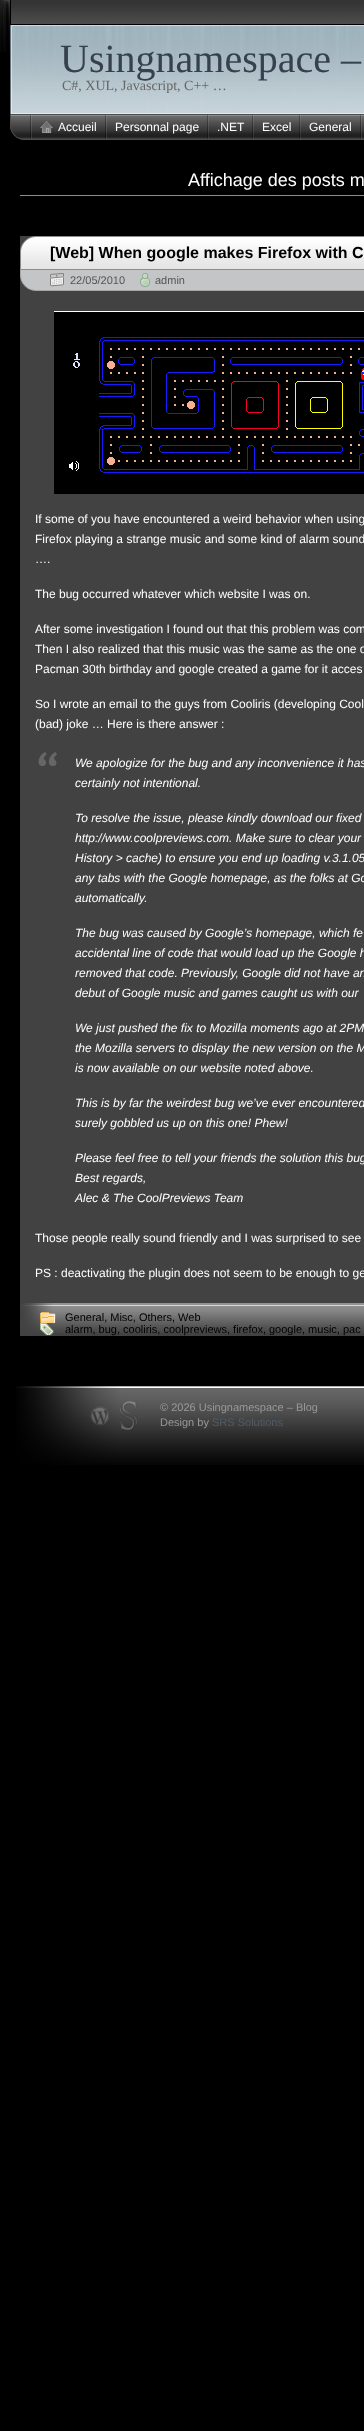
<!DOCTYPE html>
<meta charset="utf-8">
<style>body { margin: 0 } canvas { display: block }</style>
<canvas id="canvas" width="364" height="2431"></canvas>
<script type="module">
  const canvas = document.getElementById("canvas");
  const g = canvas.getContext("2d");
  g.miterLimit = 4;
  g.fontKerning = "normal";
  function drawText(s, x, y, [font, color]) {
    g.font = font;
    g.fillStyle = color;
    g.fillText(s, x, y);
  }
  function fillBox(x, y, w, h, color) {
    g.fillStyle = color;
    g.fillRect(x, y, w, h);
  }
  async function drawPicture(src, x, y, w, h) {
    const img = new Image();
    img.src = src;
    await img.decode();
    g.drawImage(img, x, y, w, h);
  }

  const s1 = ["40px Liberation Serif", "#36414D"];
  const s2 = ["14px Liberation Serif", "#666666"];
  const s3 = ["12px Liberation Sans", "#FFFFFF"];
  const s4 = ["18px Liberation Sans", "#FFFFFF"];
  const s5 = ["bold 16px Liberation Sans", "#000000"];
  const s6 = ["11px Liberation Sans", "#555555"];
  const s7 = ["italic 12px Liberation Sans", "#FFFFFF"];
  const s8 = ["11px Liberation Sans", "#000000"];
  const s9 = ["11px Liberation Sans", "#999999"];
  const s10 = ["11px Liberation Sans", "#525C66"];

  fillBox(0, 0, 364, 2431, "#000000");
  await drawPicture("pic1.png", 0, 0, 10, 52);
  await drawPicture("pic2.png", 11, 0, 353, 24);
  await drawPicture("pic3.png", 10, 25, 354, 89);
  drawText("Usingnamespace –", 60, 72, s1);
  drawText("C#, XUL, Javascript, C++ …", 62, 90, s2);
  await drawPicture("pic4.png", 10, 114, 354, 26);
  await drawPicture("pic5.png", 30, 115, 2, 24);
  await drawPicture("pic5.png", 105, 115, 2, 24);
  await drawPicture("pic6.png", 40, 121, 14, 12);
  drawText("Accueil", 58, 131, s3);
  await drawPicture("pic7.png", 207, 115, 2, 24);
  drawText("Personnal page", 115, 131, s3);
  await drawPicture("pic7.png", 252, 115, 2, 24);
  drawText(".NET", 217, 131, s3);
  await drawPicture("pic7.png", 299, 115, 2, 24);
  drawText("Excel", 262, 131, s3);
  await drawPicture("pic5.png", 360, 115, 2, 24);
  drawText("General", 309, 131, s3);
  fillBox(20, 195, 344, 1, "#8C8C8C");
  drawText("Affichage des posts m", 188, 186, s4);
  fillBox(20, 236, 344, 1100, "#424242");
  await drawPicture("pic8.png", 20, 236, 344, 33);
  drawText("[Web] When google makes Firefox with C", 50, 258, s5);
  await drawPicture("pic9.png", 20, 269, 344, 22);
  await drawPicture("pic10.png", 50, 273, 14, 14);
  drawText("22/05/2010", 70, 284, s6);
  await drawPicture("pic11.png", 140, 273, 10, 14);
  drawText("admin", 155, 284, s6);
  await drawPicture("pic12.png", 54, 311, 310, 183);
  drawText("If some of you have encountered a weird behavior when using", 35, 523, s3);
  drawText("Firefox playing a strange music and some kind of alarm sound", 35, 543, s3);
  drawText("….", 35, 563, s3);
  drawText("The bug occurred whatever which website I was on.", 35, 598, s3);
  drawText("After some investigation I found out that this problem was com", 35, 633, s3);
  drawText("Then I also realized that this music was the same as the one o", 35, 653, s3);
  drawText("Pacman 30th birthday and google created a game for it acces", 35, 673, s3);
  drawText("So I wrote an email to the guys from Cooliris (developing Cool", 35, 708, s3);
  drawText("(bad) joke … Here is there answer :", 35, 728, s3);
  await drawPicture("pic13.png", 38, 752, 19, 14);
  drawText("We apologize for the bug and any inconvenience it has", 75, 767, s7);
  drawText("certainly not intentional.", 75, 787, s7);
  drawText("To resolve the issue, please kindly download our fixed", 75, 822, s7);
  drawText("http://www.coolpreviews.com. Make sure to clear your", 75, 842, s7);
  drawText("History > cache) to ensure you end up loading v.3.1.05", 75, 862, s7);
  drawText("any tabs with the Google homepage, as the folks at Go", 75, 882, s7);
  drawText("automatically.", 75, 902, s7);
  drawText("The bug was caused by Google’s homepage, which fe", 75, 937, s7);
  drawText("accidental line of code that would load up the Google h", 75, 957, s7);
  drawText("removed that code. Previously, Google did not have an", 75, 977, s7);
  drawText("debut of Google music and games caught us with our", 75, 997, s7);
  drawText("We just pushed the fix to Mozilla moments ago at 2PM", 75, 1032, s7);
  drawText("the Mozilla servers to display the new version on the M", 75, 1052, s7);
  drawText("is now available on our website noted above.", 75, 1072, s7);
  drawText("This is by far the weirdest bug we’ve ever encountered", 75, 1107, s7);
  drawText("surely gobbled us up on this one! Phew!", 75, 1127, s7);
  drawText("Please feel free to tell your friends the solution this bug", 75, 1162, s7);
  drawText("Best regards,", 75, 1182, s7);
  drawText("Alec & The CoolPreviews Team", 75, 1202, s7);
  drawText("Those people really sound friendly and I was surprised to see", 35, 1242, s3);
  drawText("PS : deactivating the plugin does not seem to be enough to ge", 35, 1277, s3);
  await drawPicture("pic14.png", 21, 1303, 343, 30);
  await drawPicture("pic15.png", 40, 1312, 17, 11);
  drawText("General, Misc, Others, Web", 65, 1321, s8);
  await drawPicture("pic16.png", 40, 1323, 14, 12);
  drawText("alarm, bug, cooliris, coolpreviews, firefox,", 65, 1333, s8);
  g.save();
  g.beginPath();
  g.rect(40, 1303, 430, 32);
  g.clip();
  drawText("google", 269, 1333, s8);
  g.restore();
  drawText(", music, pac", 302, 1333, s8);
  await drawPicture("pic17.png", 16, 1386, 348, 79);
  await drawPicture("pic18.png", 90, 1406, 19, 20);
  await drawPicture("pic19.png", 120, 1401, 18, 29);
  drawText("© 2026 Usingnamespace – Blog", 160, 1411, s9);
  drawText("Design by", 160, 1426, s9);
  drawText("SRS Solutions", 212, 1426, s10);
</script>
